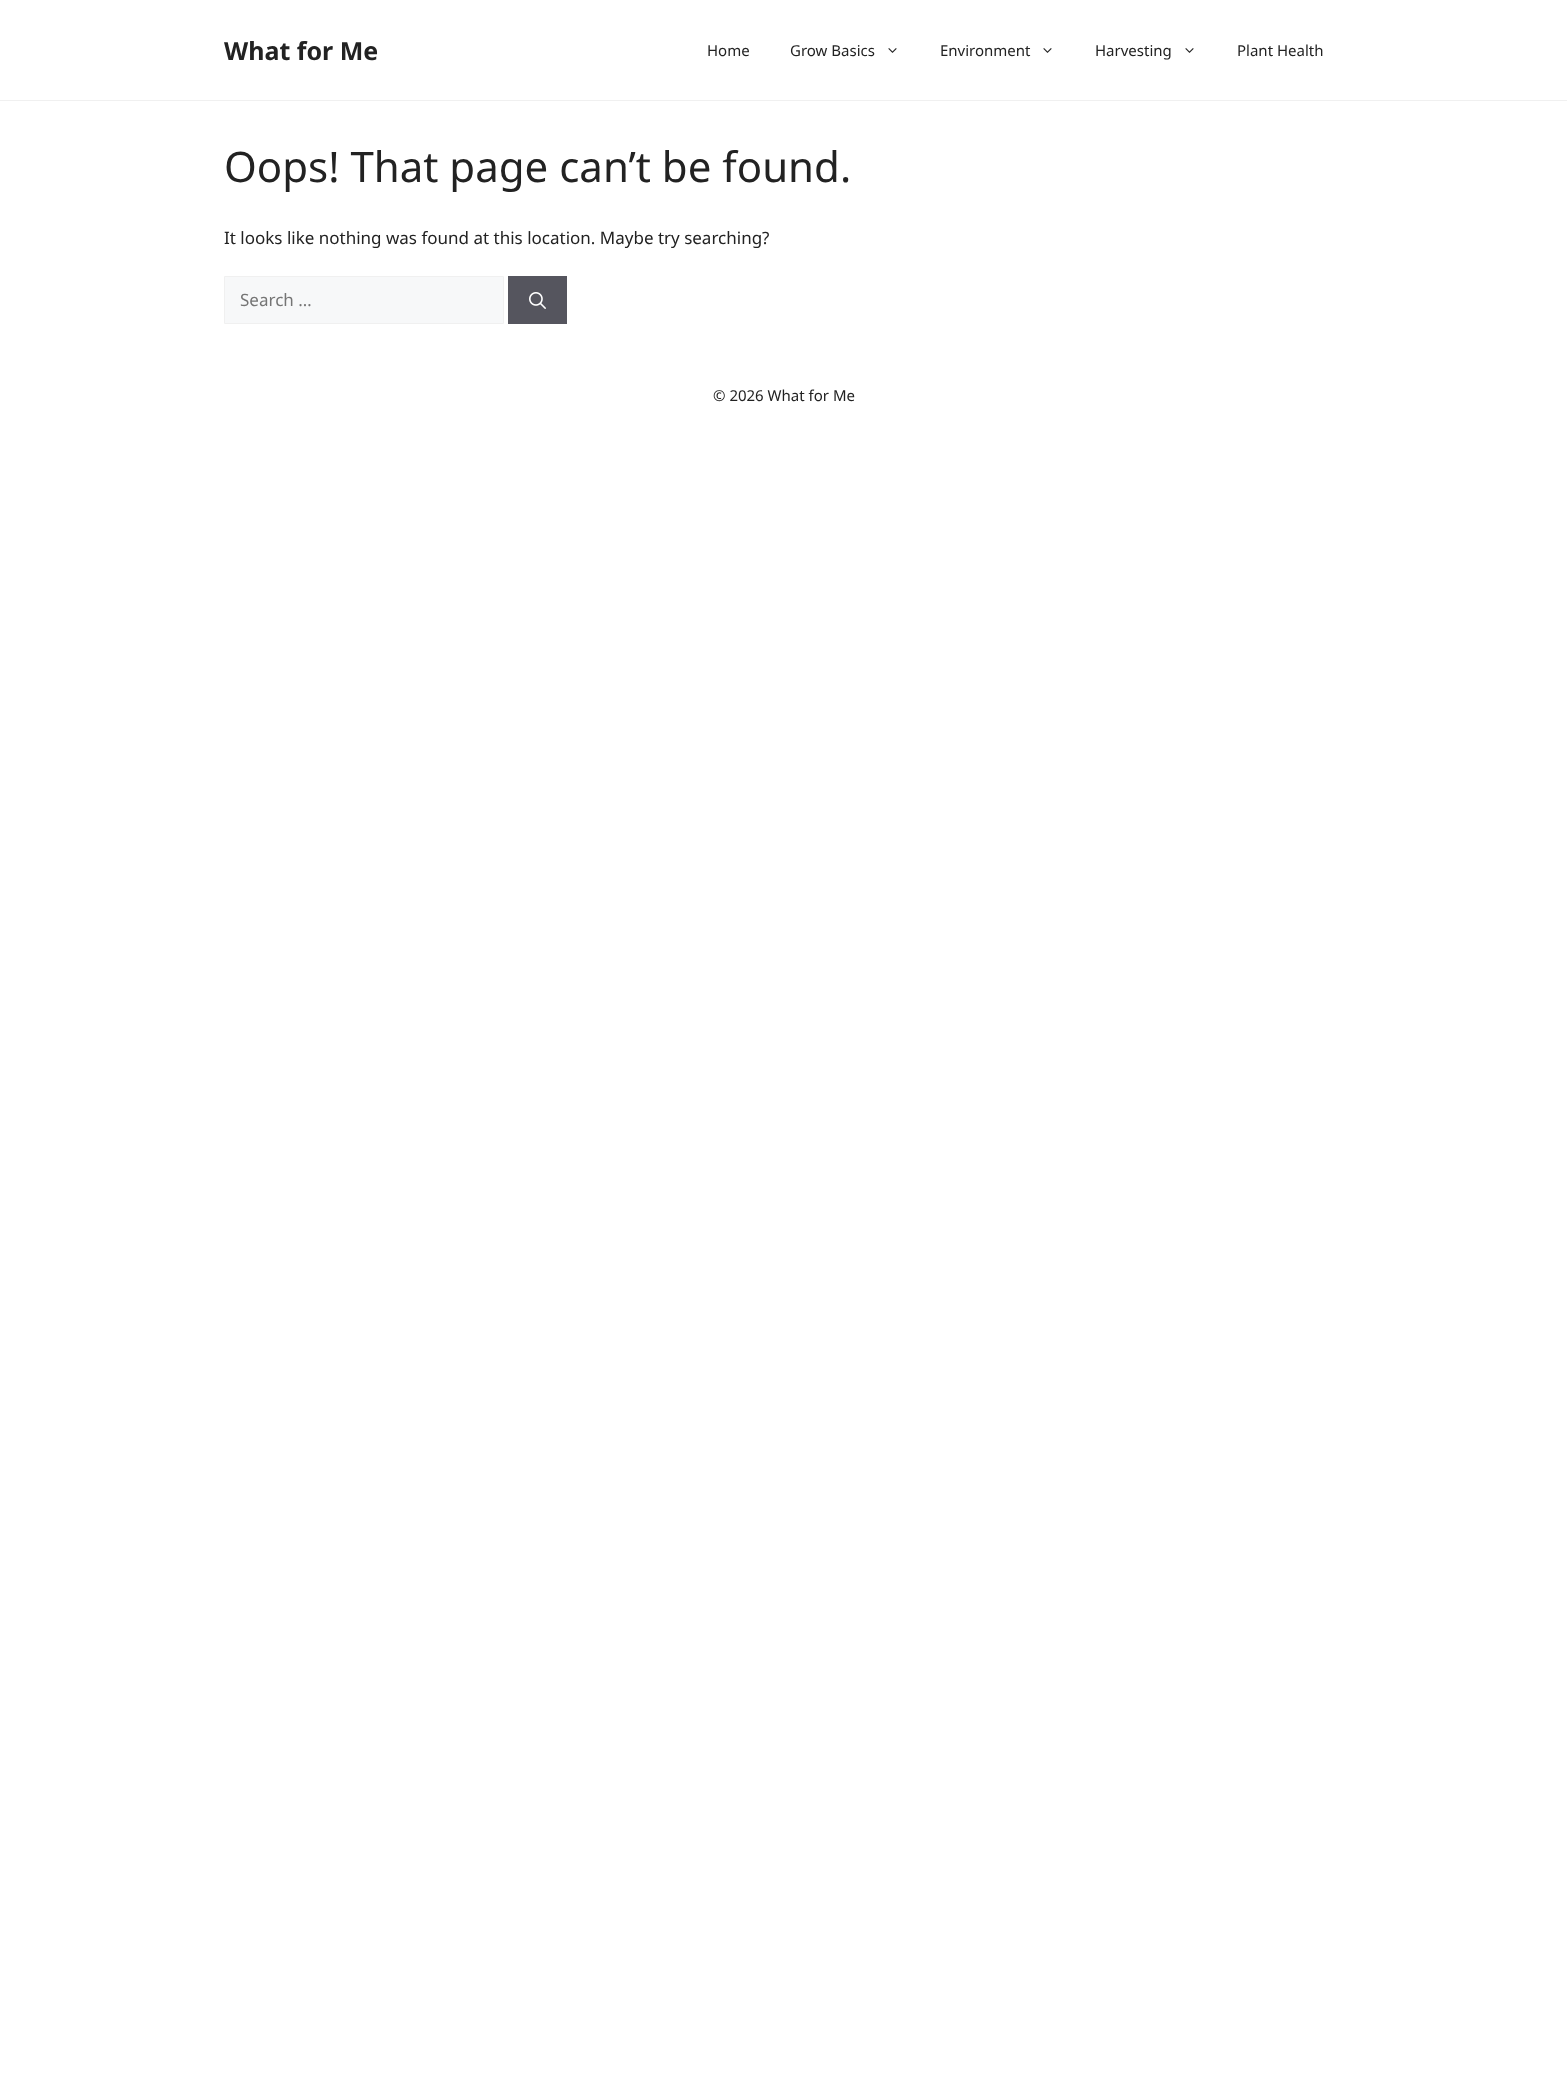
<!DOCTYPE html>
<meta charset="utf-8">
<style>body { margin: 0 } canvas { display: block }</style>
<canvas id="canvas" width="1567" height="2098"></canvas>
<script type="module">
  const canvas = document.getElementById("canvas");
  const g = canvas.getContext("2d");
  g.miterLimit = 4;
  g.fontKerning = "normal";
  function drawText(s, x, y, [font, color]) {
    g.font = font;
    g.fillStyle = color;
    g.fillText(s, x, y);
  }
  function fillBox(x, y, w, h, color) {
    g.fillStyle = color;
    g.fillRect(x, y, w, h);
  }
  async function drawPicture(src, x, y, w, h) {
    const img = new Image();
    img.src = src;
    await img.decode();
    g.drawImage(img, x, y, w, h);
  }

  const s1 = ["bold 25px Noto Sans", "#222222"];
  const s2 = ["15px Noto Sans", "#222222"];
  const s3 = ["42px Noto Sans", "#222222"];
  const s4 = ["17px Noto Sans", "#222222"];
  const s5 = ["17px Noto Sans", "#757575"];

  fillBox(0, 0, 1567, 2098, "#FFFFFF");
  fillBox(0, 100, 1567, 1, "#F0F0F0");
  drawText("What for Me", 224, 60, s1);
  drawText("Home", 707, 56, s2);
  drawText("Grow Basics", 790, 56, s2);
  await drawPicture("pic1.png", 888, 48, 9, 5);
  drawText("Environment", 940, 56, s2);
  await drawPicture("pic1.png", 1043, 48, 9, 5);
  drawText("Harvesting", 1095, 56, s2);
  await drawPicture("pic1.png", 1185, 48, 9, 5);
  drawText("Plant Health", 1237, 56, s2);
  drawText("Oops! That page can’t be found.", 224, 182, s3);
  drawText("It looks like nothing was found at this location. Maybe try searching?", 224, 244, s4);
  g.fillStyle = "#F7F8F9";
  g.beginPath();
  g.rect(224.5, 276.5, 279, 47);
  g.fill();
  g.strokeStyle = "#F0F0F0";
  g.stroke();
  drawText("Search …", 240, 306, s5);
  fillBox(508, 276, 59, 48, "#55555E");
  await drawPicture("pic2.png", 529, 292, 17, 17);
  drawText("© 2026 What for Me", 713, 401, s2);
</script>
